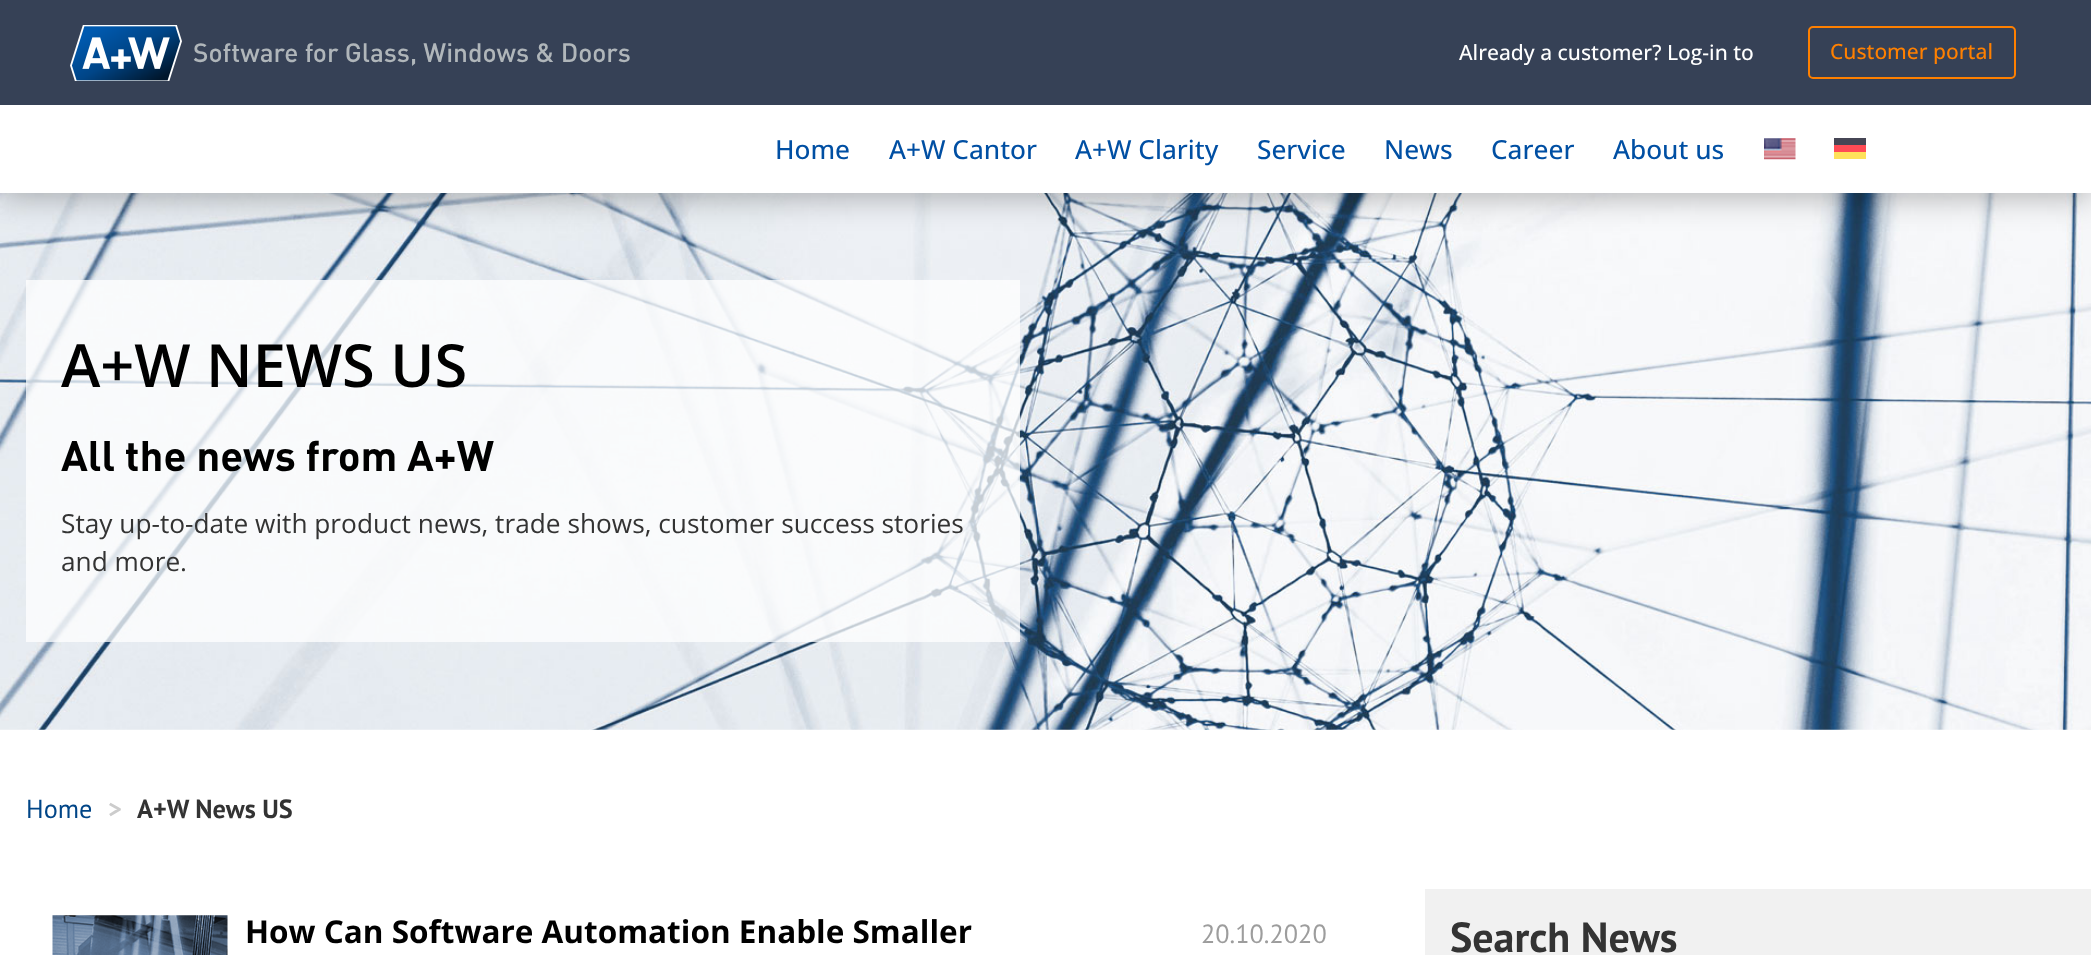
<!DOCTYPE html>
<meta charset="utf-8">
<style>body { margin: 0 } canvas { display: block }</style>
<canvas id="canvas" width="2091" height="955"></canvas>
<script type="module">
  const canvas = document.getElementById("canvas");
  const g = canvas.getContext("2d");
  g.miterLimit = 4;
  g.fontKerning = "normal";
  function drawText(s, x, y, [font, color]) {
    g.font = font;
    g.fillStyle = color;
    g.fillText(s, x, y);
  }
  function fillBox(x, y, w, h, color) {
    g.fillStyle = color;
    g.fillRect(x, y, w, h);
  }
  async function drawPicture(src, x, y, w, h) {
    const img = new Image();
    img.src = src;
    await img.decode();
    g.drawImage(img, x, y, w, h);
  }

  const s1 = ["500 26.25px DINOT", "#B0B6BA"];
  const s2 = ["500 21px Open Sans", "#FFFFFF"];
  const s3 = ["500 21px Open Sans", "#FF8000"];
  const s4 = ["500 26.25px Open Sans", "#004FA3"];
  const s5 = ["600 59.5px Open Sans", "#000000"];
  const s6 = ["bold 42px DINOT", "#000000"];
  const s7 = ["26.25px Open Sans", "#333333"];
  const s8 = ["26.25px PT Sans", "#004587"];
  const s9 = ["bold 26.25px PT Sans", "#CCCCCC"];
  const s10 = ["bold 26.25px PT Sans", "#333333"];
  const s11 = ["bold 31.5px Open Sans", "#000000"];
  const s12 = ["26.25px PT Sans", "#9D9D9D"];
  const s13 = ["bold 42px PT Sans", "#333333"];

  fillBox(0, 0, 2091, 955, "#FFFFFF");
  await drawPicture("pic3.png", 0, 193, 2091, 537);
  g.fillStyle = "rgba(0, 0, 0, 0.3)";
  g.filter = "blur(16px)";
  g.beginPath();
  g.rect(0, 109, 2091, 87);
  g.fill();
  g.filter = "none";
  fillBox(0, 0, 2091, 105, "#364156");
  await drawPicture("pic1.png", 70, 25, 112, 56);
  drawText("Software for Glass, Windows & Doors", 193, 62, s1);
  drawText("Already a customer? Log-in to", 1459, 60, s2);
  g.beginPath();
  g.roundRect(1809, 27, 206, 51, 4);
  g.strokeStyle = "#FF8000";
  g.lineWidth = 2;
  g.stroke();
  drawText("Customer portal", 1830, 59, s3);
  fillBox(0, 105, 2091, 88, "#FFFFFF");
  drawText("Home", 775, 159, s4);
  drawText("A+W Cantor", 889, 159, s4);
  drawText("A+W Clarity", 1075, 159, s4);
  drawText("Service", 1257, 159, s4);
  drawText("News", 1384, 159, s4);
  drawText("Career", 1491, 159, s4);
  drawText("About us", 1613, 159, s4);
  await drawPicture("pic2.png", 1764, 138, 32, 22);
  fillBox(1834, 138, 32, 7, "#464655");
  fillBox(1834, 145, 32, 7, "#FF4B55");
  fillBox(1834, 152, 32, 7, "#FFE15A");
  fillBox(26, 280, 994, 362, "rgba(255, 255, 255, 0.75)");
  drawText("A+W NEWS US", 61, 387, s5);
  drawText("All the news from A+W", 61, 471, s6);
  drawText("Stay up-to-date with product news, trade shows, customer success stories", 61, 533, s7);
  drawText("and more.", 61, 571, s7);
  drawText("Home", 26, 818, s8);
  drawText(">", 108, 818, s9);
  drawText("A+W News US", 137, 818, s10);
  await drawPicture("pic4.png", 52, 915, 176, 40);
  drawText("How Can Software Automation Enable Smaller", 245, 943, s11);
  drawText("20.10.2020", 1201, 943, s12);
  fillBox(1425, 889, 666, 66, "#F1F1F1");
  drawText("Search News", 1450, 952, s13);
</script>
